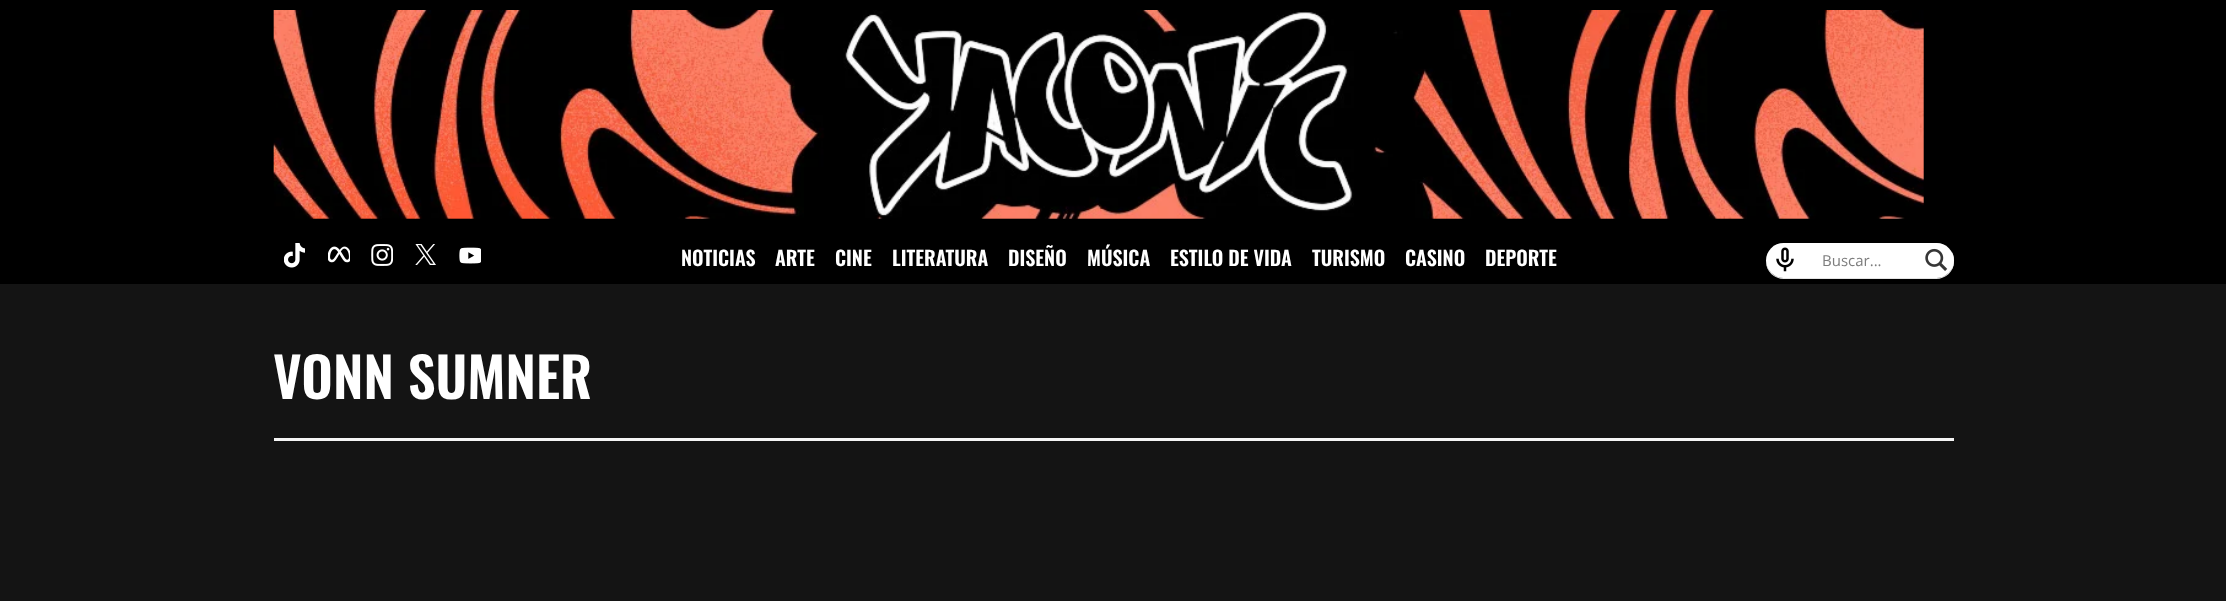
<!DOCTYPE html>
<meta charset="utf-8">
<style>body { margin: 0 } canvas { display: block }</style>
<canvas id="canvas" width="2226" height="601"></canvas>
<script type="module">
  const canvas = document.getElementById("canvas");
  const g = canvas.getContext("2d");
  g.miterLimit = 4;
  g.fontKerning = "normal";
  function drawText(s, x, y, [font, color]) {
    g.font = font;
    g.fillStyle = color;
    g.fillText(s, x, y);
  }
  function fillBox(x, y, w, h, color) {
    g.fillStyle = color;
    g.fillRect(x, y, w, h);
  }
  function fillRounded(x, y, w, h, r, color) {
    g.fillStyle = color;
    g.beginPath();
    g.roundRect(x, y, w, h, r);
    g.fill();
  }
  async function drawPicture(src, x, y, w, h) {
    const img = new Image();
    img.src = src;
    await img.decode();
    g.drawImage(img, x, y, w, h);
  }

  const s1 = ["600 20px Oswald", "#FFFFFF"];
  const s2 = ["15px Open Sans", "#7D7D7D"];
  const s3 = ["600 55px Oswald", "#FFFFFF"];

  fillBox(0, 0, 2226, 601, "#000000");
  await drawPicture("pic1.png", 273, 10, 1651, 209);
  await drawPicture("pic2.png", 284, 243, 21, 25);
  await drawPicture("pic3.png", 328, 246, 22, 17);
  await drawPicture("pic4.png", 371, 244, 22, 22);
  await drawPicture("pic5.png", 415, 244, 21, 21);
  await drawPicture("pic6.png", 459, 247, 22, 17);
  drawText("NOTICIAS", 681, 266, s1);
  drawText("ARTE", 775, 266, s1);
  drawText("CINE", 835, 266, s1);
  drawText("LITERATURA", 892, 266, s1);
  drawText("DISEÑO", 1008, 266, s1);
  drawText("MÚSICA", 1087, 266, s1);
  drawText("ESTILO DE VIDA", 1170, 266, s1);
  drawText("TURISMO", 1312, 266, s1);
  drawText("CASINO", 1405, 266, s1);
  drawText("DEPORTE", 1485, 266, s1);
  g.fillStyle = "#E4E4E4";
  g.beginPath();
  g.moveTo(1766, 258);
  g.lineTo(1766, 262);
  g.bezierCurveTo(1766, 271, 1774, 279, 1784, 279);
  g.lineTo(1936, 279);
  g.bezierCurveTo(1946, 279, 1954, 271, 1954, 262);
  g.lineTo(1954, 258);
  g.lineTo(1954, 260);
  g.bezierCurveTo(1954, 270, 1946, 278, 1936, 278);
  g.lineTo(1784, 278);
  g.bezierCurveTo(1774, 278, 1766, 270, 1766, 260);
  g.closePath();
  g.fill();
  fillRounded(1766, 243, 188, 35, 17.5, "#FFFFFF");
  await drawPicture("pic7.png", 1776, 247, 18, 25);
  drawText("Buscar...", 1822, 266, s2);
  g.save();
  g.beginPath();
  g.rect(1919, 243, 35, 35);
  g.clip();
  g.fillStyle = "rgba(255, 255, 255, 0.64)";
  g.beginPath();
  g.moveTo(1918, 244);
  g.lineTo(1918, 278);
  g.lineTo(1795, 278);
  g.lineTo(1795, 243);
  g.lineTo(1936, 243);
  g.lineTo(1942, 244);
  g.closePath();
  g.moveTo(1952, 269);
  g.bezierCurveTo(1955, 264, 1955, 257, 1952, 252);
  g.closePath();
  g.fill("evenodd");
  g.restore();
  await drawPicture("pic8.png", 1925, 248, 23, 23);
  fillBox(0, 284, 2226, 317, "#141414");
  drawText("VONN SUMNER", 273, 399, s3);
  fillBox(274, 438, 1680, 3, "#F5F5F5");
</script>
